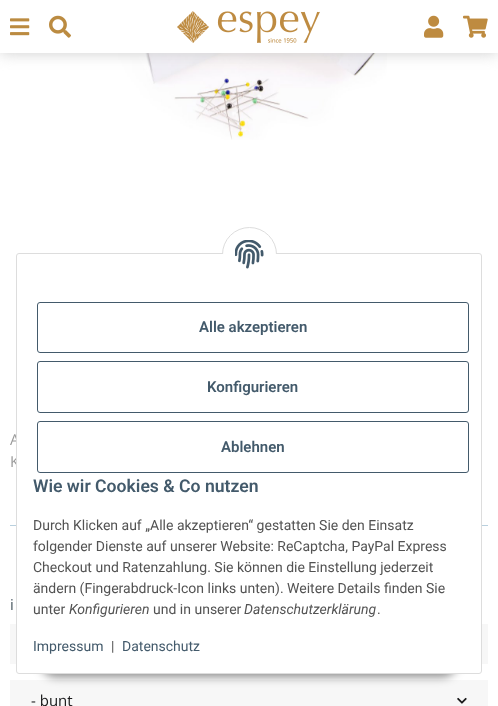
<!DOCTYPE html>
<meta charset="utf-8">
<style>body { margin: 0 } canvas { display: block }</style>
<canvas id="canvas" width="498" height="706"></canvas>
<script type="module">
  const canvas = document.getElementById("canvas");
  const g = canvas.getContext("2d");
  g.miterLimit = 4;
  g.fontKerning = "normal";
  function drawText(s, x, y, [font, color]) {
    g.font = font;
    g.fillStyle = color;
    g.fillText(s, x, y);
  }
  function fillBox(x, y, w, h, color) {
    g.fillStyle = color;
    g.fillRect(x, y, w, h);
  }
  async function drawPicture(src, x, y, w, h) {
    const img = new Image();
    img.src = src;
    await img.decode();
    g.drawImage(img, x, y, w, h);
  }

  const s1 = ["15px Open Sans", "#999999"];
  const s2 = ["600 15px Roboto", "#435A6B"];
  const s3 = ["600 17.6px Roboto", "#435A6B"];
  const s4 = ["14px Roboto", "#535353"];
  const s5 = ["italic 14px Roboto", "#535353"];
  const s6 = ["14px Roboto", "#435A6B"];
  const s7 = ["15px Open Sans", "#4B5962"];
  const s8 = ["15px Open Sans", "#181819"];

  fillBox(0, 0, 498, 706, "#FFFFFF");
  await drawPicture("pic7.png", 113, 53, 274, 87);
  g.fillStyle = "#CECECE";
  g.filter = "blur(7.5px)";
  g.beginPath();
  g.rect(0, 0, 498, 53);
  g.fill();
  g.filter = "none";
  fillBox(0, 0, 498, 53, "#FFFFFF");
  await drawPicture("pic1.png", 10, 18, 20, 18);
  await drawPicture("pic2.png", 49, 15, 22, 23);
  await drawPicture("pic3.png", 177, 11, 143, 32);
  await drawPicture("pic4.png", 424, 15, 20, 23);
  await drawPicture("pic5.png", 463, 15, 25, 23);
  fillBox(10, 624, 478, 40, "#F7F7F7");
  fillBox(10, 680, 478, 26, "#F7F7F7");
  g.fillStyle = "rgba(0, 0, 0, 0.45)";
  g.filter = "blur(5px)";
  g.beginPath();
  g.roundRect(40, 645, 418, 32, 16);
  g.fill();
  g.filter = "none";
  drawText("A", 10, 445, s1);
  drawText("K", 10, 467, s1);
  fillBox(10, 525, 478, 1, "#B9D0DE");
  g.fillStyle = "#FFFFFF";
  g.beginPath();
  g.roundRect(16.5, 253.5, 465, 420, 2.5);
  g.fill();
  g.strokeStyle = "#DDDDDD";
  g.stroke();
  g.beginPath();
  g.arc(249.5, 254.5, 27, 0, Math.PI * 2);
  g.fill();
  g.stroke();
  fillBox(222, 254, 55, 28, "#FFFFFF");
  await drawPicture("pic6.png", 235, 240, 29, 29);
  g.beginPath();
  g.roundRect(37.5, 302.5, 431, 50, 2.5);
  g.strokeStyle = "#435A6B";
  g.stroke();
  drawText("Alle akzeptieren", 199, 332, s2);
  g.beginPath();
  g.roundRect(37.5, 361.5, 431, 51, 2.5);
  g.stroke();
  drawText("Konfigurieren", 207, 392, s2);
  g.beginPath();
  g.roundRect(37.5, 421.5, 431, 51, 2.5);
  g.stroke();
  drawText("Ablehnen", 221, 452, s2);
  drawText("Wie wir Cookies & Co nutzen", 33, 492, s3);
  drawText("Durch Klicken auf „Alle akzeptieren“ gestatten Sie den Einsatz", 33, 530, s4);
  drawText("folgender Dienste auf unserer Website: ReCaptcha, PayPal Express", 33, 551, s4);
  drawText("Checkout und Ratenzahlung. Sie können die Einstellung jederzeit", 33, 572, s4);
  drawText("ändern (Fingerabdruck-Icon links unten). Weitere Details finden Sie", 33, 593, s4);
  drawText("unter", 33, 614, s4);
  drawText("Konfigurieren", 69, 614, s5);
  drawText("und in unserer", 153, 614, s4);
  drawText("Datenschutzerklärung", 244, 614, s5);
  drawText(".", 377, 614, s4);
  drawText("Impressum", 33, 651, s6);
  drawText("|", 111, 651, s4);
  drawText("Datenschutz", 122, 651, s6);
  drawText("i", 10, 610, s7);
  drawText("- bunt", 31, 706, s8);
  await drawPicture("pic8.png", 457, 697, 10, 7);
</script>
